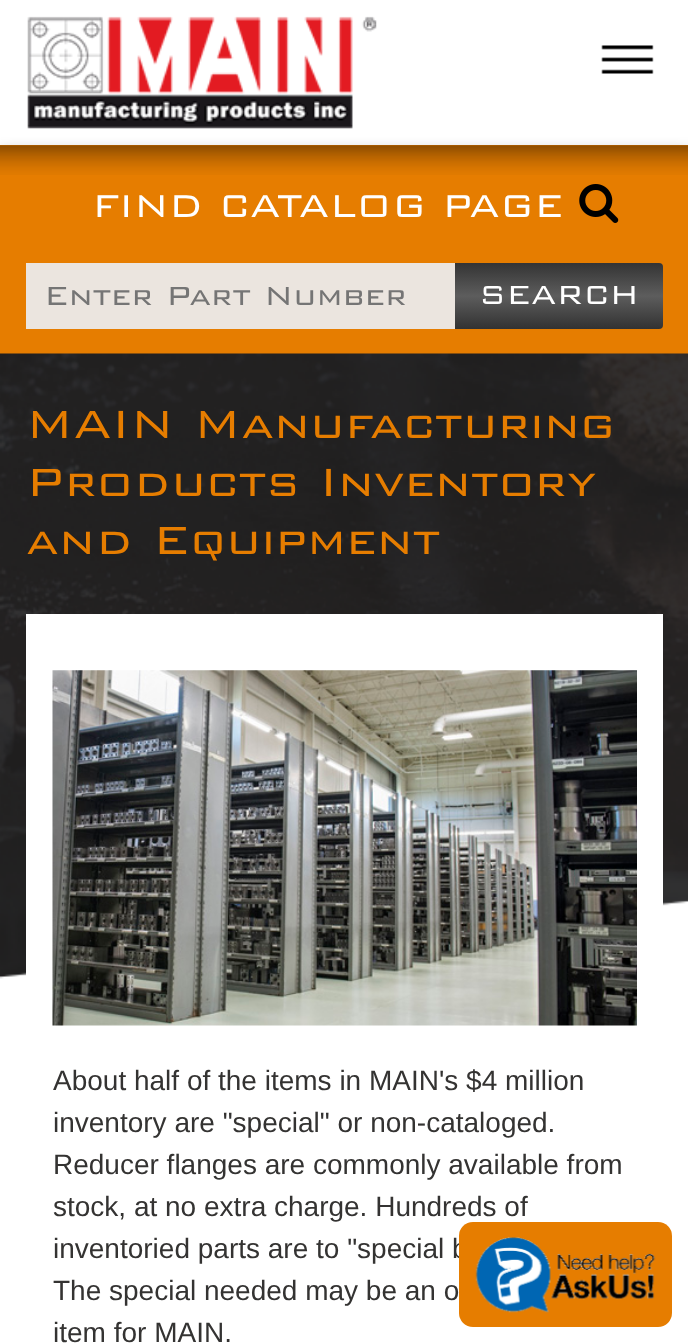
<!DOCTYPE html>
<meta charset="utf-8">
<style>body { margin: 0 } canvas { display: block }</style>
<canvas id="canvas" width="688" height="1343"></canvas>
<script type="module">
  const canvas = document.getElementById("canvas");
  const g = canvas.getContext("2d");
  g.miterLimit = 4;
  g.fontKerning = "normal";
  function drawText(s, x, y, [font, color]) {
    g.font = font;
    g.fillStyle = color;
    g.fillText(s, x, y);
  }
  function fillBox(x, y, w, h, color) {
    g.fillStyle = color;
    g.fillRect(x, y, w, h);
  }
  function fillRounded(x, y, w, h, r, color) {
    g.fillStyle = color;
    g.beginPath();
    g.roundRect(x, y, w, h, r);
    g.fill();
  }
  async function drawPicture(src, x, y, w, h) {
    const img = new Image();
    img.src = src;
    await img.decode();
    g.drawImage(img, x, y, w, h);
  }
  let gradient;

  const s1 = ["300 42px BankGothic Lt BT", "#FFFFFF"];
  const s2 = ["300 35px BankGothic Lt BT", "#757575"];
  const s3 = ["300 35px BankGothic Lt BT", "#FFFFFF"];
  const s4 = ["300 52.5px BankGothic Lt BT", "#E67D00"];
  const s5 = ["28px Liberation Sans", "#343332"];

  fillBox(0, 0, 688, 1343, "#FFFFFF");
  await drawPicture("pic1.png", 27, 16, 350, 113);
  await drawPicture("pic2.png", 601, 45, 53, 29);
  g.fillStyle = "rgba(0, 0, 0, 0.4)";
  g.filter = "blur(7px)";
  g.beginPath();
  g.rect(0, 152, 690, 209);
  g.fill();
  g.filter = "none";
  fillBox(0, 145, 688, 209, "#E67D00");
  await drawPicture("pic3.png", 0, 145, 688, 30);
  drawText("FIND CATALOG PAGE", 92, 217, s1);
  await drawPicture("pic4.png", 579, 184, 40, 39);
  fillBox(26, 263, 429, 66, "#EBE5DF");
  drawText("Enter Part Number", 44, 305, s2);
  gradient = g.createLinearGradient(559, 263, 559, 329);
  gradient.addColorStop(0, "#343434");
  gradient.addColorStop(0.5, "#5D5D5D");
  gradient.addColorStop(1, "#323232");
  g.fillStyle = gradient;
  g.beginPath();
  g.roundRect(455, 263, 208, 66, [0, 4, 4, 0]);
  g.fill();
  drawText("SEARCH", 479, 304, s3);
  await drawPicture("pic5.png", 0, 353, 688, 626);
  drawText("MAIN Manufacturing", 26, 438, s4);
  drawText("Products Inventory", 26, 496, s4);
  drawText("and Equipment", 26, 554, s4);
  fillBox(26, 614, 637, 362, "#FFFFFF");
  await drawPicture("pic6.png", 52, 670, 585, 356);
  drawText("About half of the items in MAIN's $4 million", 53, 1090, s5);
  drawText("inventory are \"special\" or non-cataloged.", 53, 1132, s5);
  drawText("Reducer flanges are commonly available from", 53, 1174, s5);
  drawText("stock, at no extra charge. Hundreds of", 53, 1216, s5);
  drawText("inventoried parts are to \"special b", 53, 1258, s5);
  drawText("The special needed may be an o", 53, 1300, s5);
  drawText("item for MAIN.", 53, 1342, s5);
  fillRounded(459, 1222, 213, 105, 14, "#E67D00");
  await drawPicture("pic7.png", 475, 1237, 181, 76);
</script>
